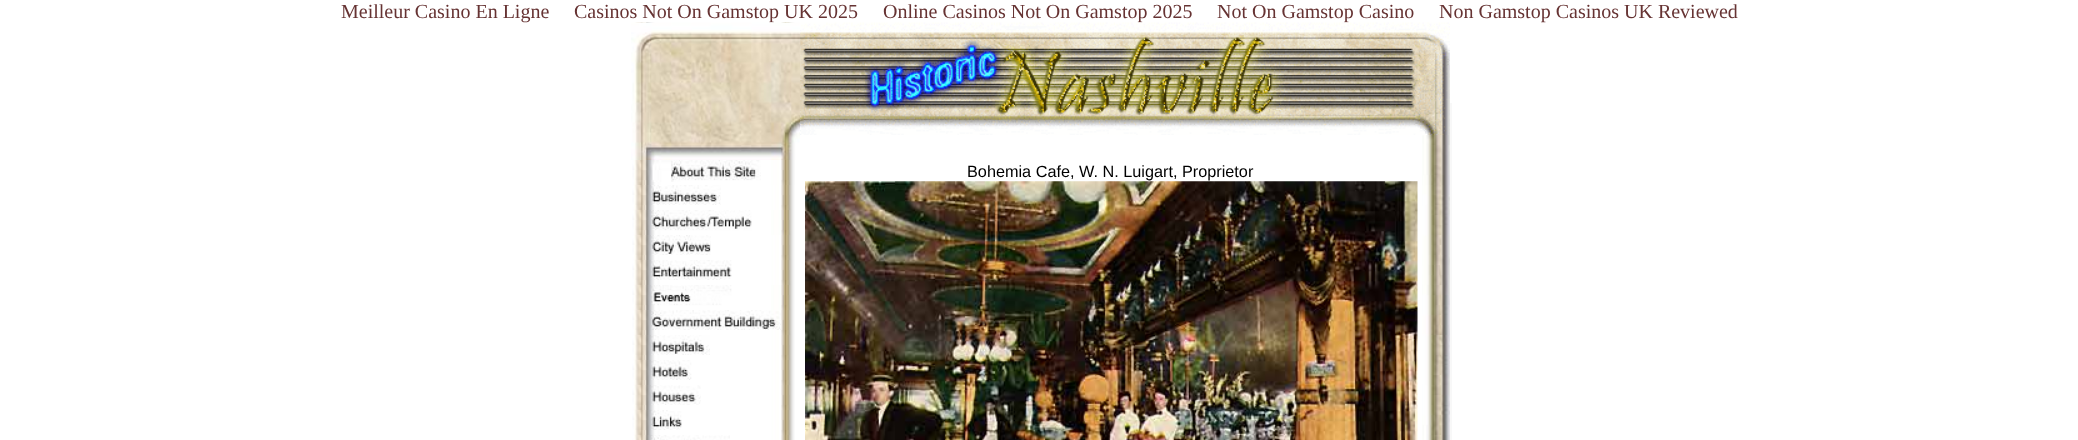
<!DOCTYPE html>
<meta charset="utf-8">
<style>body { margin: 0 } canvas { display: block }</style>
<canvas id="canvas" width="2078" height="440"></canvas>
<script type="module">
  const canvas = document.getElementById("canvas");
  const g = canvas.getContext("2d");
  g.miterLimit = 4;
  g.fontKerning = "normal";
  function drawText(s, x, y, [font, color]) {
    g.font = font;
    g.fillStyle = color;
    g.fillText(s, x, y);
  }
  function fillBox(x, y, w, h, color) {
    g.fillStyle = color;
    g.fillRect(x, y, w, h);
  }
  async function drawPicture(src, x, y, w, h) {
    const img = new Image();
    img.src = src;
    await img.decode();
    g.drawImage(img, x, y, w, h);
  }

  const s1 = ["20px Liberation Serif", "#663333"];
  const s2 = ["16.25px Liberation Sans", "#000000"];

  fillBox(0, 0, 2078, 440, "#FFFFFF");
  drawText("Meilleur Casino En Ligne", 341, 18, s1);
  await drawPicture("pic1.png", 632, 22, 163, 1);
  drawText("Casinos Not On Gamstop UK 2025", 574, 18, s1);
  drawText("Online Casinos Not On Gamstop 2025", 883, 18, s1);
  drawText("Not On Gamstop Casino", 1217, 18, s1);
  drawText("Non Gamstop Casinos UK Reviewed", 1439, 18, s1);
  await drawPicture("pic2.png", 631, 22, 169, 138);
  await drawPicture("pic3.png", 800, 22, 650, 113);
  fillBox(1450, 103, 2, 337, "#F8F8F8");
  await drawPicture("pic4.png", 632, 160, 163, 25);
  await drawPicture("pic5.png", 635, 160, 126, 22);
  drawText("Bohemia Cafe, W. N. Luigart, Proprietor", 967, 177, s2);
  await drawPicture("pic6.png", 805, 181, 613, 259);
  await drawPicture("pic7.png", 1422, 135, 28, 305);
  await drawPicture("pic8.png", 632, 185, 163, 255);
  await drawPicture("pic9.png", 635, 185, 86, 20);
  await drawPicture("pic10.png", 635, 210, 154, 25);
  await drawPicture("pic11.png", 635, 235, 76, 20);
  await drawPicture("pic12.png", 635, 260, 97, 20);
  await drawPicture("pic13.png", 635, 285, 154, 25);
  await drawPicture("pic14.png", 635, 310, 146, 20);
  await drawPicture("pic15.png", 635, 335, 75, 20);
  await drawPicture("pic16.png", 635, 360, 57, 20);
  await drawPicture("pic17.png", 635, 385, 66, 20);
  await drawPicture("pic18.png", 635, 410, 47, 20);
  await drawPicture("pic19.png", 651, 435, 79, 5);
</script>
